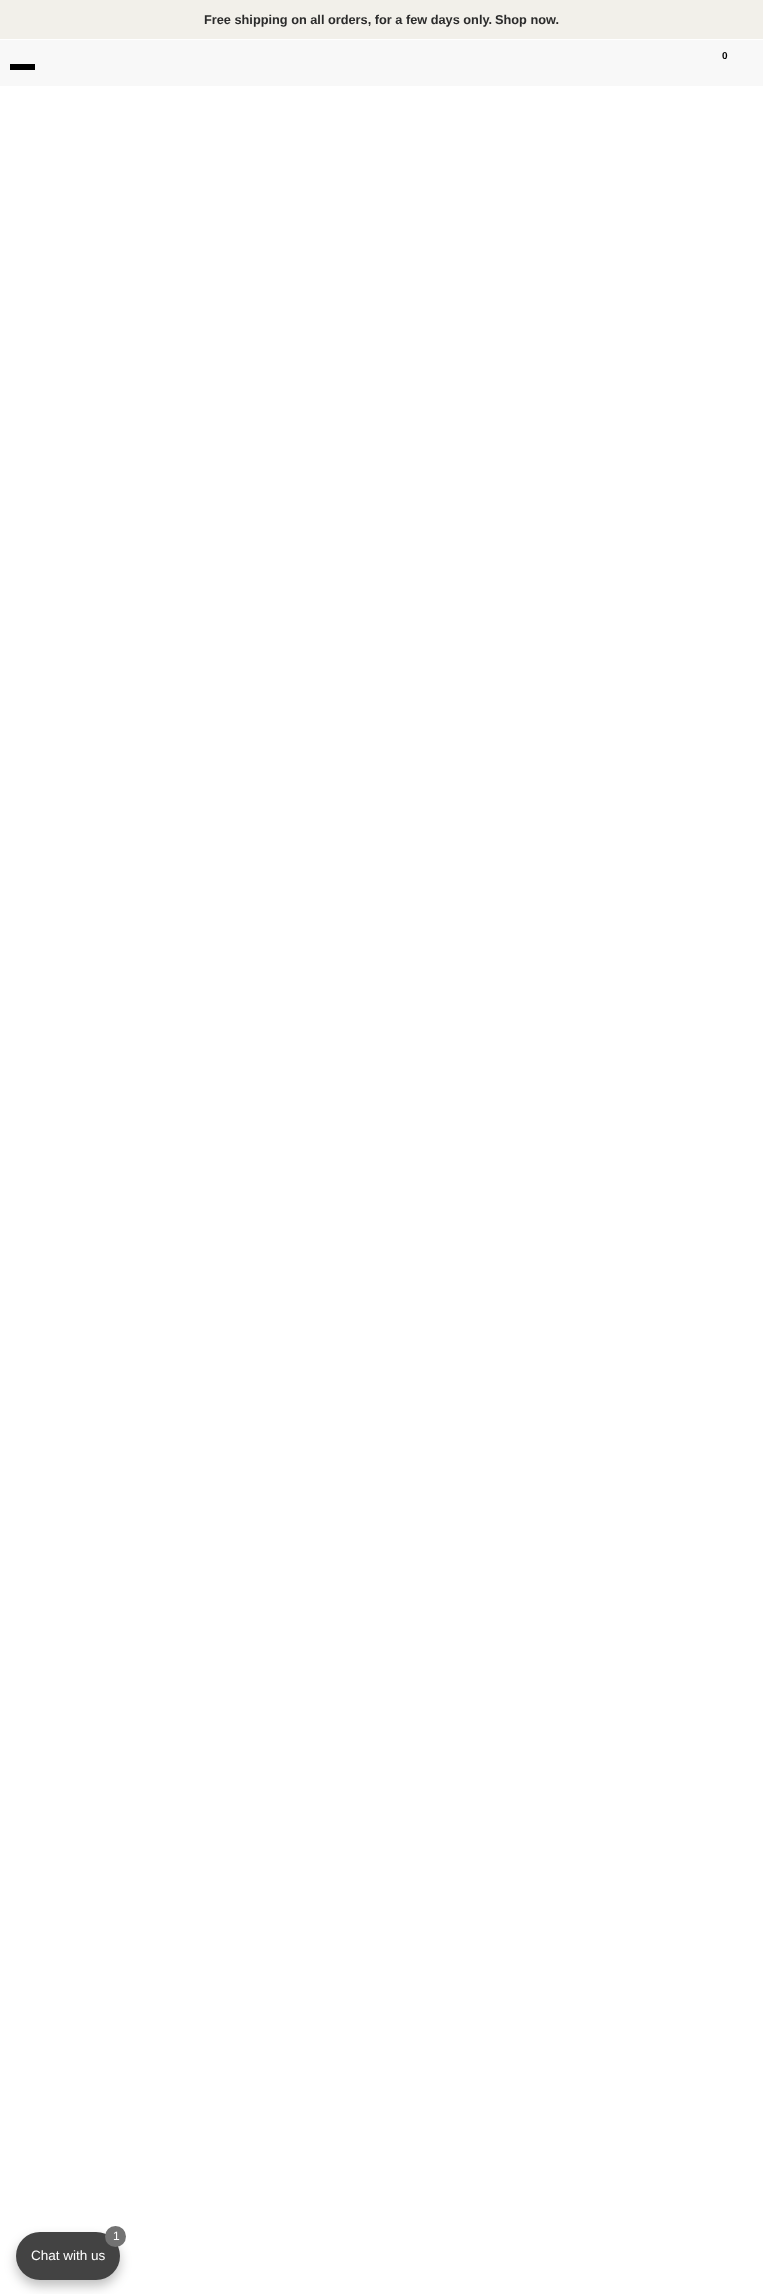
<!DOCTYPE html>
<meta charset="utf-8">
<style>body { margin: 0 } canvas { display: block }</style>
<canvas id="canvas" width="763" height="2294"></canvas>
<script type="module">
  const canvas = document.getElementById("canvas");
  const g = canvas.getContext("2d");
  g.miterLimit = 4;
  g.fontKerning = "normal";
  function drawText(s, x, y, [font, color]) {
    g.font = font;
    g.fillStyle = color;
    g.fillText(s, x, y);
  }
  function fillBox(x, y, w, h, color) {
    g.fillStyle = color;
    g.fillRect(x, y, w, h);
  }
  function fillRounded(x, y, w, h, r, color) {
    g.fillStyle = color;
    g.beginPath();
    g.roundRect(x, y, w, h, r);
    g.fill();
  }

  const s1 = ["bold 12.75px Liberation Sans", "#2B2B2B"];
  const s2 = ["bold 10px Liberation Sans", "#000000"];
  const s3 = ["12px Liberation Sans", "#FFFFFF"];
  const s4 = ["13.5px Liberation Sans", "#FFFFFF"];

  fillBox(0, 0, 763, 2294, "#FFFFFF");
  fillBox(0, 0, 763, 39, "#F2F0EA");
  drawText("Free shipping on all orders, for a few days only.", 204, 24, s1);
  drawText("Shop now.", 495, 24, s1);
  fillBox(0, 40, 763, 46, "#F8F8F8");
  drawText("0", 722, 59, s2);
  fillBox(10, 64, 25, 6, "#000000");
  g.fillStyle = "rgba(0, 0, 0, 0.25)";
  g.filter = "blur(6px)";
  g.beginPath();
  g.roundRect(16, 2238, 104, 48, 24);
  g.fill();
  g.filter = "none";
  fillRounded(16, 2232, 104, 48, 24, "#434343");
  g.fillStyle = "#737373";
  g.beginPath();
  g.arc(115.5, 2236.5, 10.5, 0, Math.PI * 2);
  g.fill();
  drawText("1", 113, 2240, s3);
  drawText("Chat with us", 31, 2260, s4);
</script>
